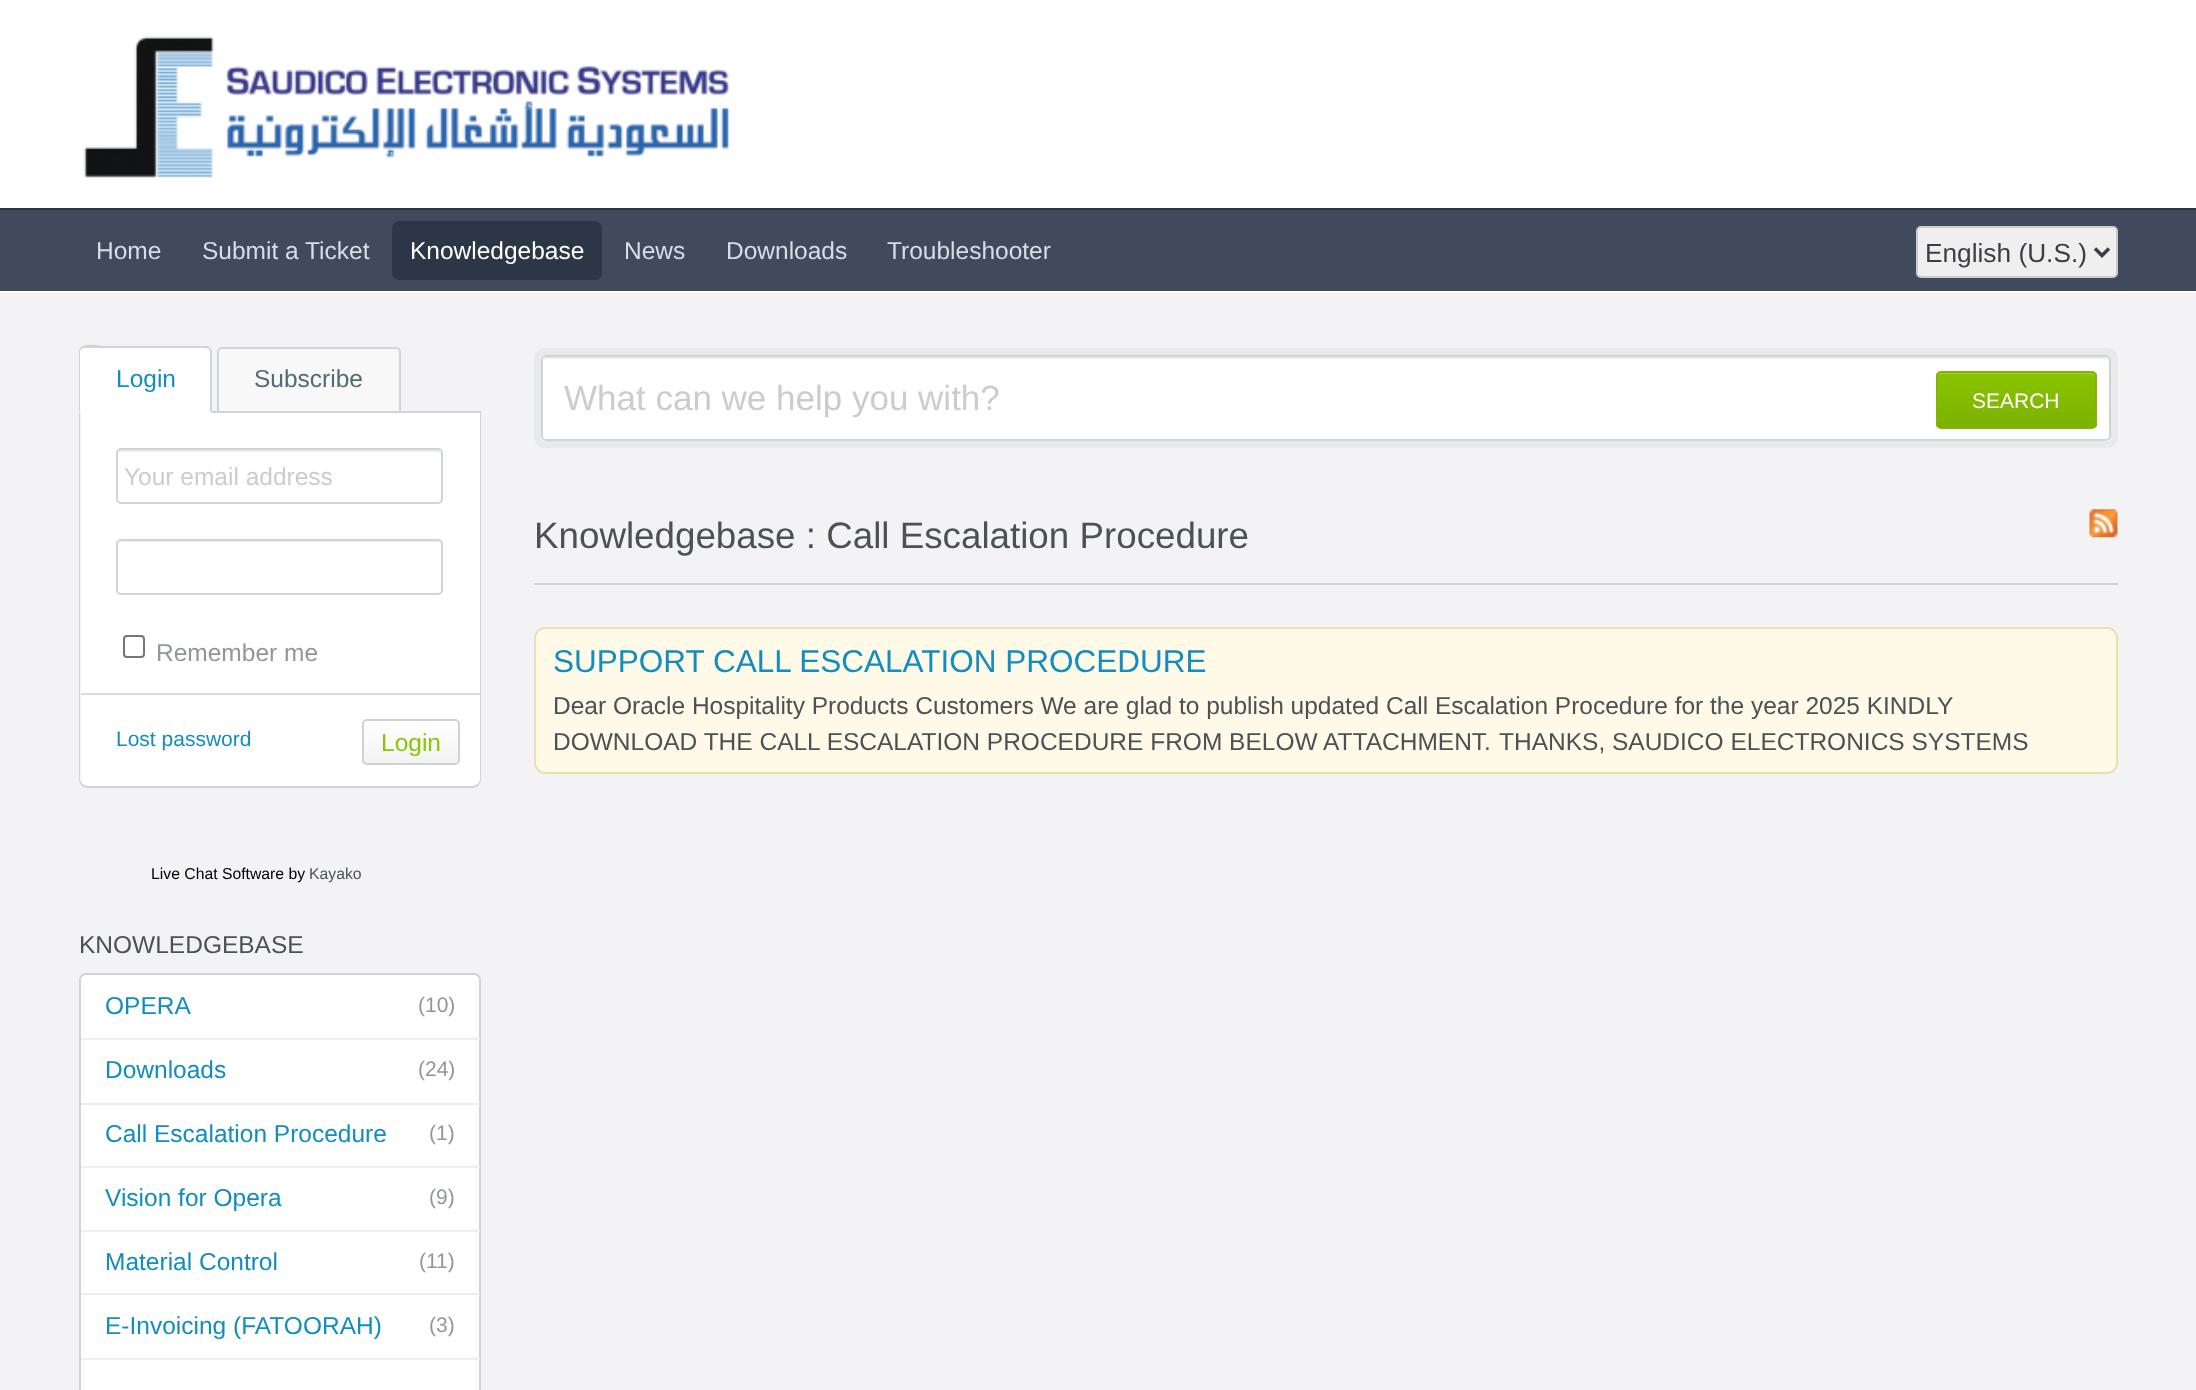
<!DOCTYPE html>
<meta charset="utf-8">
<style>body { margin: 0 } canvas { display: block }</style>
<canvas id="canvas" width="2196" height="1390"></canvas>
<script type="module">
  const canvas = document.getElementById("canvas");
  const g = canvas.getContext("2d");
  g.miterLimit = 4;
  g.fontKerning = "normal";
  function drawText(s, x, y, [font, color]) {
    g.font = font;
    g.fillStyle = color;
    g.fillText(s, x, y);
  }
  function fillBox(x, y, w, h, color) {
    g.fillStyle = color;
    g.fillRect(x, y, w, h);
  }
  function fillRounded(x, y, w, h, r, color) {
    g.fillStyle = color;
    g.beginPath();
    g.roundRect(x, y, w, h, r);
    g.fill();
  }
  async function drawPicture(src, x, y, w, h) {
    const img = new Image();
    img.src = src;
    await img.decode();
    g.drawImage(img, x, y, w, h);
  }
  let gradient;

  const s1 = ["24.5px Liberation Sans", "#D4DEE7"];
  const s2 = ["24.5px Liberation Sans", "#FFFFFF"];
  const s3 = ["26.25px Liberation Sans", "#3C3E43"];
  const s4 = ["24.5px Liberation Sans", "#128DBE"];
  const s5 = ["24.5px Liberation Sans", "#506C74"];
  const s6 = ["24.5px Liberation Sans", "#CCCCCC"];
  const s7 = ["24.5px Liberation Sans", "#92969B"];
  const s8 = ["21px Liberation Sans", "#128DBE"];
  const s9 = ["24.5px Liberation Sans", "#8AC500"];
  const s10 = ["15.75px Liberation Sans", "#000000"];
  const s11 = ["15.75px Liberation Sans", "#4C5156"];
  const s12 = ["24.5px Liberation Sans", "#4C5156"];
  const s13 = ["21px Liberation Sans", "#92969B"];
  const s14 = ["35px Liberation Sans", "#CCCCCC"];
  const s15 = ["21px Liberation Sans", "#FFFFFF"];
  const s16 = ["36.75px Liberation Sans", "#4C5156"];
  const s17 = ["31.5px Liberation Sans", "#128DBE"];

  fillBox(0, 0, 2196, 1390, "#F3F3F5");
  fillBox(0, 0, 2196, 208, "#FFFFFF");
  await drawPicture("pic1.png", 83, 36, 647, 143);
  fillBox(0, 210, 2196, 81, "#414A5C");
  fillBox(0, 208, 2196, 2, "#2D3646");
  fillBox(0, 291, 2196, 2, "#FFFFFF");
  drawText("Home", 96, 259, s1);
  drawText("Submit a Ticket", 202, 259, s1);
  fillRounded(392, 221, 210, 59, 7, "#2D3646");
  drawText("Knowledgebase", 410, 259, s2);
  drawText("News", 624, 259, s1);
  drawText("Downloads", 726, 259, s1);
  drawText("Troubleshooter", 887, 259, s1);
  g.fillStyle = "#EFEFEF";
  g.beginPath();
  g.roundRect(1917, 227, 200, 50, 4);
  g.fill();
  g.strokeStyle = "#CCCCCC";
  g.lineWidth = 2;
  g.stroke();
  g.beginPath();
  g.moveTo(2095, 248.5);
  g.lineTo(2102, 255.5);
  g.lineTo(2109, 248.5);
  g.strokeStyle = "#3C3E43";
  g.lineWidth = 3.5;
  g.stroke();
  drawText("English (U.S.)", 1925, 262, s3);
  fillBox(212, 411, 269, 2, "#CFD4D6");
  g.fillStyle = "#FFFFFF";
  g.beginPath();
  g.roundRect(79, 347, 133, 66, [5, 5, 0, 0]);
  g.fill();
  g.fillStyle = "#CFD4D6";
  g.beginPath();
  g.moveTo(84, 348);
  g.lineTo(81, 349);
  g.lineTo(80, 348);
  g.bezierCurveTo(85, 342, 103, 346, 103, 346);
  g.lineTo(208, 346);
  g.lineTo(210, 348);
  g.lineTo(209, 349);
  g.lineTo(206, 348);
  g.closePath();
  g.fill();
  g.beginPath();
  g.moveTo(212, 350);
  g.lineTo(212, 413);
  g.lineTo(210, 411);
  g.lineTo(210, 352);
  g.lineTo(209, 349);
  g.lineTo(210, 348);
  g.closePath();
  g.fill();
  g.fillStyle = "#FFFFFF";
  g.beginPath();
  g.moveTo(212, 413);
  g.lineTo(210, 411);
  g.lineTo(81, 411);
  g.lineTo(79, 413);
  g.closePath();
  g.fill();
  g.fillStyle = "#CFD4D6";
  g.beginPath();
  g.moveTo(79, 413);
  g.lineTo(79, 352);
  g.bezierCurveTo(79, 351, 79, 349, 80, 348);
  g.lineTo(81, 349);
  g.lineTo(80, 352);
  g.lineTo(80, 411);
  g.lineTo(81, 411);
  g.closePath();
  g.fill();
  drawText("Login", 116, 387, s4);
  g.fillStyle = "#F8F8F8";
  g.beginPath();
  g.roundRect(218, 348, 182, 64, [4, 4, 0, 0]);
  g.fill();
  g.strokeStyle = "#CFD4D6";
  g.lineWidth = 2;
  g.stroke();
  drawText("Subscribe", 254, 387, s5);
  g.fillStyle = "#FFFFFF";
  g.beginPath();
  g.roundRect(81, 413, 399, 373, [0, 0, 7, 7]);
  g.fill();
  g.fillStyle = "#CFD4D6";
  g.beginPath();
  g.moveTo(79, 413);
  g.lineTo(481, 413);
  g.lineTo(481, 779);
  g.bezierCurveTo(481, 784, 477, 788, 472, 788);
  g.lineTo(88, 788);
  g.bezierCurveTo(83, 788, 79, 784, 79, 779);
  g.closePath();
  g.moveTo(80, 413);
  g.lineTo(480, 413);
  g.lineTo(480, 779);
  g.bezierCurveTo(480, 783, 476, 786, 472, 786);
  g.lineTo(88, 786);
  g.bezierCurveTo(84, 786, 80, 783, 80, 779);
  g.closePath();
  g.fill("evenodd");
  g.fillStyle = "#ECECEC";
  g.beginPath();
  g.moveTo(121, 452);
  g.lineTo(438, 452);
  g.bezierCurveTo(439, 452, 441, 453, 441, 455);
  g.lineTo(441, 454);
  g.bezierCurveTo(441, 452, 439, 450, 437, 450);
  g.lineTo(121, 450);
  g.bezierCurveTo(119, 450, 117, 452, 117, 454);
  g.lineTo(117, 455);
  g.bezierCurveTo(117, 453, 119, 452, 121, 452);
  g.closePath();
  g.fill();
  g.beginPath();
  g.roundRect(117, 449, 325, 54, 4);
  g.stroke();
  drawText("Your email address", 124, 485, s6);
  g.fillStyle = "#ECECEC";
  g.beginPath();
  g.moveTo(121, 542);
  g.lineTo(438, 542);
  g.bezierCurveTo(439, 542, 441, 544, 441, 546);
  g.lineTo(441, 545);
  g.bezierCurveTo(441, 543, 439, 541, 437, 541);
  g.lineTo(121, 541);
  g.bezierCurveTo(119, 541, 117, 543, 117, 545);
  g.lineTo(117, 546);
  g.bezierCurveTo(117, 544, 119, 542, 121, 542);
  g.closePath();
  g.fill();
  g.beginPath();
  g.roundRect(117, 540, 325, 54, 4);
  g.stroke();
  g.beginPath();
  g.roundRect(124, 636, 20, 21, 3);
  g.strokeStyle = "#767676";
  g.stroke();
  drawText("Remember me", 156, 661, s7);
  fillBox(81, 693, 399, 2, "#D8DBDF");
  drawText("Lost password", 116, 746, s8);
  g.save();
  g.beginPath();
  g.roundRect(362, 719, 98, 46, 5);
  g.clip();
  gradient = g.createLinearGradient(364, 721, 364, 763);
  gradient.addColorStop(0, "#FFFFFF");
  gradient.addColorStop(1, "#F3F3F3");
  g.fillStyle = gradient;
  g.fillRect(362, 721, 98, 42);
  g.restore();
  g.fillStyle = "#FFFFFF";
  g.beginPath();
  g.moveTo(368, 723);
  g.lineTo(455, 723);
  g.bezierCurveTo(459, 723, 458, 729, 458, 732);
  g.lineTo(458, 762);
  g.bezierCurveTo(459, 761, 459, 760, 459, 759);
  g.lineTo(459, 725);
  g.bezierCurveTo(459, 723, 457, 721, 455, 721);
  g.lineTo(368, 721);
  g.bezierCurveTo(366, 721, 364, 723, 364, 725);
  g.lineTo(364, 726);
  g.bezierCurveTo(364, 724, 366, 723, 368, 723);
  g.closePath();
  g.fill();
  g.beginPath();
  g.roundRect(363, 720, 96, 44, 4);
  g.strokeStyle = "#CDD2D4";
  g.stroke();
  drawText("Login", 381, 751, s9);
  drawText("Live Chat Software by", 151, 879, s10);
  drawText("Kayako", 309, 879, s11);
  drawText("KNOWLEDGEBASE", 79, 953, s12);
  g.fillStyle = "#FFFFFF";
  g.beginPath();
  g.roundRect(80, 974, 400, 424, 6);
  g.fill();
  g.strokeStyle = "#CFD4D6";
  g.stroke();
  fillBox(81, 1038, 399, 2, "#EEEEEE");
  drawText("OPERA", 105, 1014, s4);
  drawText("(10)", 418, 1012, s13);
  fillBox(81, 1103, 399, 2, "#EEEEEE");
  drawText("Downloads", 105, 1078, s4);
  drawText("(24)", 418, 1076, s13);
  fillBox(81, 1166, 399, 2, "#EEEEEE");
  drawText("Call Escalation Procedure", 105, 1142, s4);
  drawText("(1)", 429, 1140, s13);
  fillBox(81, 1230, 399, 2, "#EEEEEE");
  drawText("Vision for Opera", 105, 1206, s4);
  drawText("(9)", 429, 1204, s13);
  fillBox(81, 1293, 399, 2, "#EEEEEE");
  drawText("Material Control", 105, 1270, s4);
  drawText("(11)", 419, 1268, s13);
  fillBox(81, 1358, 399, 2, "#EEEEEE");
  drawText("E-Invoicing (FATOORAH)", 105, 1334, s4);
  drawText("(3)", 429, 1332, s13);
  g.fillStyle = "#FFFFFF";
  g.beginPath();
  g.roundRect(537.5, 351.5, 1577, 93, 7.5);
  g.fill();
  g.strokeStyle = "#E8E9EB";
  g.lineWidth = 7;
  g.stroke();
  g.fillStyle = "#ECECEC";
  g.beginPath();
  g.moveTo(546, 359);
  g.lineTo(2105, 359);
  g.bezierCurveTo(2107, 359, 2109, 360, 2109, 362);
  g.lineTo(2109, 361);
  g.bezierCurveTo(2109, 359, 2107, 357, 2105, 357);
  g.lineTo(547, 357);
  g.bezierCurveTo(545, 357, 544, 358, 543, 360);
  g.closePath();
  g.fill();
  g.beginPath();
  g.roundRect(542, 356, 1568, 84, 4);
  g.strokeStyle = "#CFD4D6";
  g.lineWidth = 2;
  g.stroke();
  drawText("What can we help you with?", 564, 410, s14);
  g.save();
  g.beginPath();
  g.roundRect(1936, 371, 161, 58, 5);
  g.clip();
  gradient = g.createLinearGradient(1937, 373, 1937, 427);
  gradient.addColorStop(0, "#8AC400");
  gradient.addColorStop(1, "#7DB100");
  g.fillStyle = gradient;
  g.fillRect(1936, 373, 161, 54);
  g.restore();
  g.fillStyle = "#A1D033";
  g.beginPath();
  g.moveTo(1941, 374);
  g.lineTo(2091, 374);
  g.bezierCurveTo(2093, 374, 2095, 376, 2095, 378);
  g.bezierCurveTo(2095, 376, 2094, 374, 2092, 373);
  g.lineTo(1940, 373);
  g.bezierCurveTo(1938, 374, 1937, 376, 1937, 378);
  g.bezierCurveTo(1937, 376, 1939, 374, 1941, 374);
  g.closePath();
  g.fill();
  g.beginPath();
  g.roundRect(1937, 372, 159, 56, 4);
  g.strokeStyle = "#80B506";
  g.stroke();
  drawText("SEARCH", 1972, 408, s15);
  fillBox(534, 583, 1584, 2, "#CFD4D6");
  drawText("Knowledgebase : Call Escalation Procedure", 534, 548, s16);
  await drawPicture("pic2.png", 2089, 509, 29, 29);
  g.fillStyle = "#FFF9E7";
  g.beginPath();
  g.roundRect(535, 628, 1582, 145, 10);
  g.fill();
  g.strokeStyle = "#EEDEAE";
  g.stroke();
  drawText("SUPPORT CALL ESCALATION PROCEDURE", 553, 672, s17);
  drawText("Dear Oracle Hospitality Products Customers We are glad to publish updated Call Escalation Procedure for the year 2025 KINDLY", 553, 714, s12);
  drawText("DOWNLOAD THE CALL ESCALATION PROCEDURE FROM BELOW ATTACHMENT.", 553, 750, s12);
  drawText("THANKS, SAUDICO ELECTRONICS SYSTEMS", 1499, 750, s12);
</script>
